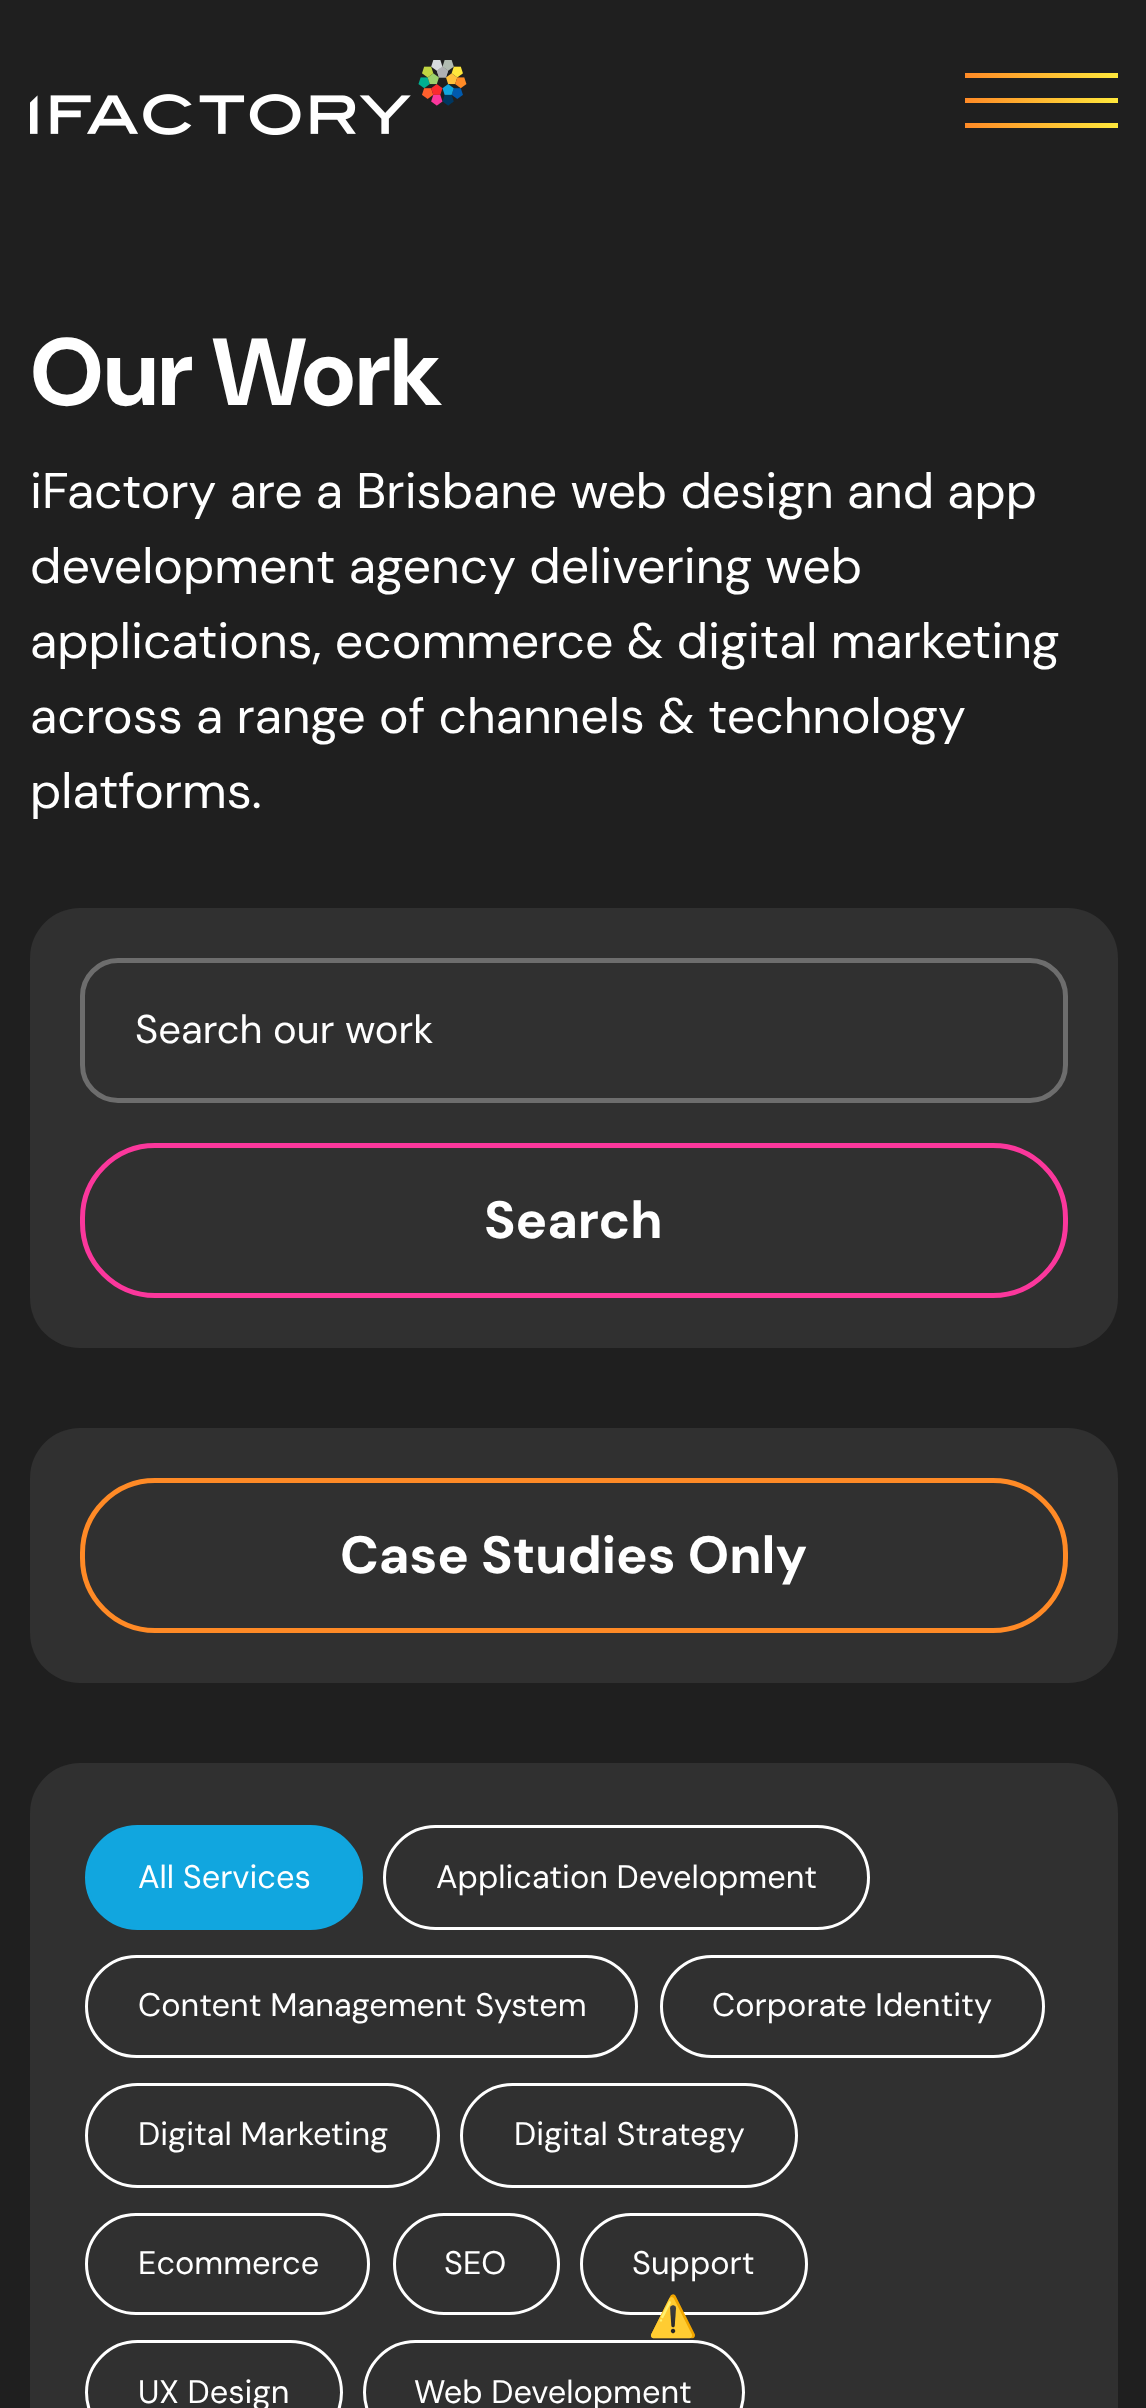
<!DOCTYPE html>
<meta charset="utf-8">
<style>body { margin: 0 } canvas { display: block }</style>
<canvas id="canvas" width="1146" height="2408"></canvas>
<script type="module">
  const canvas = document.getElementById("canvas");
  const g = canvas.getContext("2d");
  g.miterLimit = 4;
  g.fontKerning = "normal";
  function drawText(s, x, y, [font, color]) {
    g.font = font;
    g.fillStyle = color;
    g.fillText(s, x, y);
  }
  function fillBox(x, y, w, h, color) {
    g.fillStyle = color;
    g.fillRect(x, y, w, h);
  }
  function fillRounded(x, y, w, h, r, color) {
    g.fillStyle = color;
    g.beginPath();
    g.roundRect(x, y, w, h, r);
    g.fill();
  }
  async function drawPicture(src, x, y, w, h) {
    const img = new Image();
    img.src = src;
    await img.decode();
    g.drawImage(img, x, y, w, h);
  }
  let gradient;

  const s1 = ["bold 95px DM Sans", "#FFFFFF"];
  const s2 = ["50px DM Sans", "#FFFFFF"];
  const s3 = ["40px 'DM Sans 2'", "#FFFFFF"];
  const s4 = ["bold 52.5px 'DM Sans 2'", "#FFFFFF"];
  const s5 = ["32.5px 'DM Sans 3'", "#FFFFFF"];
  const s6 = ["40px Noto Color Emoji", "#000000"];

  fillBox(0, 0, 1146, 2408, "#1F1F1F");
  await drawPicture("pic1.png", 30, 60, 437, 75);
  gradient = g.createLinearGradient(965, 78, 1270, 77);
  gradient.addColorStop(0, "#FF8A26");
  gradient.addColorStop(0.5, "#FFE83C");
  gradient.addColorStop(1, "#C0D642");
  g.fillStyle = gradient;
  g.fillRect(965, 73, 153, 5);
  gradient = g.createLinearGradient(965, 103, 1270, 102);
  gradient.addColorStop(0, "#FF8A26");
  gradient.addColorStop(0.5, "#FFE83C");
  gradient.addColorStop(1, "#C0D642");
  g.fillStyle = gradient;
  g.fillRect(965, 98, 153, 5);
  gradient = g.createLinearGradient(965, 128, 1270, 127);
  gradient.addColorStop(0, "#FF8A26");
  gradient.addColorStop(0.5, "#FFE83C");
  gradient.addColorStop(1, "#C0D642");
  g.fillStyle = gradient;
  g.fillRect(965, 123, 153, 5);
  drawText("Our Work", 30, 405, s1);
  drawText("iFactory are a Brisbane web design and app", 30, 508, s2);
  drawText("development agency delivering web", 30, 583, s2);
  drawText("applications, ecommerce & digital marketing", 30, 658, s2);
  drawText("across a range of channels & technology", 30, 733, s2);
  drawText("platforms.", 30, 808, s2);
  fillRounded(30, 908, 1088, 440, 50, "#303030");
  g.beginPath();
  g.roundRect(82.5, 960.5, 983, 140, 35.5);
  g.strokeStyle = "#6D6D6D";
  g.lineWidth = 5;
  g.stroke();
  drawText("Search our work", 135, 1043, s3);
  g.beginPath();
  g.roundRect(82.5, 1145.5, 983, 150, 72.5);
  g.strokeStyle = "#FB379C";
  g.stroke();
  drawText("Search", 484, 1238, s4);
  fillRounded(30, 1428, 1088, 255, 50, "#303030");
  g.beginPath();
  g.roundRect(82.5, 1480.5, 983, 150, 72.5);
  g.strokeStyle = "#FF8A26";
  g.stroke();
  drawText("Case Studies Only", 340, 1573, s4);
  fillRounded(30, 1763, 1088, 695, 50, "#303030");
  g.fillStyle = "#11A6DF";
  g.beginPath();
  g.roundRect(86.5, 1826.5, 275, 102, 51);
  g.fill();
  g.strokeStyle = "#11A6DF";
  g.lineWidth = 3;
  g.stroke();
  drawText("All Services", 138, 1888, s5);
  g.beginPath();
  g.roundRect(384.5, 1826.5, 484, 102, 51);
  g.strokeStyle = "#FFFFFF";
  g.stroke();
  drawText("Application Development", 436, 1888, s5);
  g.beginPath();
  g.roundRect(86.5, 1956.5, 550, 100, 50);
  g.stroke();
  drawText("Content Management System", 138, 2016, s5);
  g.beginPath();
  g.roundRect(661.5, 1956.5, 382, 100, 50);
  g.stroke();
  drawText("Corporate Identity", 712, 2016, s5);
  g.beginPath();
  g.roundRect(86.5, 2084.5, 352, 102, 51);
  g.stroke();
  drawText("Digital Marketing", 138, 2145, s5);
  g.beginPath();
  g.roundRect(461.5, 2084.5, 335, 102, 51);
  g.stroke();
  drawText("Digital Strategy", 514, 2145, s5);
  g.beginPath();
  g.roundRect(86.5, 2214.5, 282, 99, 49.5);
  g.stroke();
  drawText("Ecommerce", 138, 2274, s5);
  g.beginPath();
  g.roundRect(394.5, 2214.5, 164, 99, 49.5);
  g.stroke();
  drawText("SEO", 444, 2274, s5);
  g.beginPath();
  g.roundRect(581.5, 2214.5, 225, 99, 49.5);
  g.stroke();
  drawText("Support", 632, 2274, s5);
  g.beginPath();
  g.roundRect(86.5, 2341.5, 255, 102, 51);
  g.stroke();
  drawText("UX Design", 138, 2403, s5);
  g.beginPath();
  g.roundRect(364.5, 2341.5, 379, 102, 51);
  g.stroke();
  drawText("Web Development", 414, 2403, s5);
  drawText("⚠️", 648, 2330, s6);
</script>
